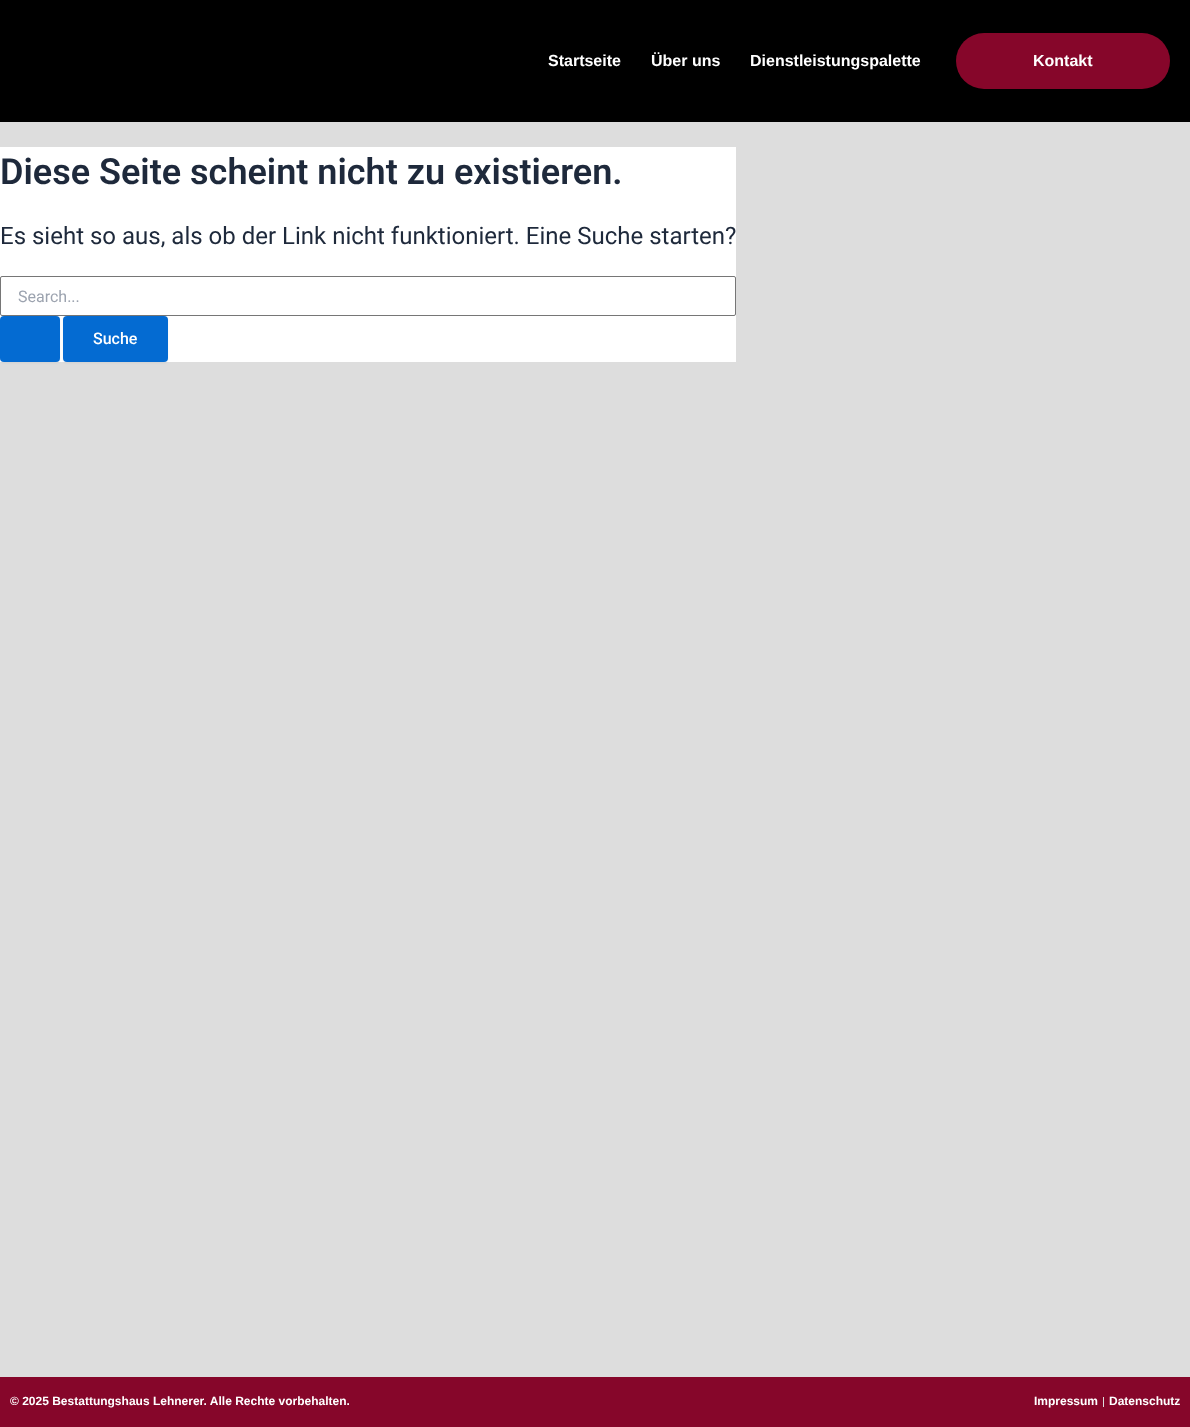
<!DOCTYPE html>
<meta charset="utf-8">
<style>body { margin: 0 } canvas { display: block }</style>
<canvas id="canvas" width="1190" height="1427"></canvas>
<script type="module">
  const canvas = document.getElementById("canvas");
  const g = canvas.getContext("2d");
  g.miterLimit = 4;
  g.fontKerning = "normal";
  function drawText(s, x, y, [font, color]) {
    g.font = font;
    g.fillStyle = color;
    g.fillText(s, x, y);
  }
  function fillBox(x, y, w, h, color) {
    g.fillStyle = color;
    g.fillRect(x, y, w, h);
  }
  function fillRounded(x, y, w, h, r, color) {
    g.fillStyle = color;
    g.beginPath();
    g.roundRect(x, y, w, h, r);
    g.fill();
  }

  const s1 = ["bold 16px Liberation Sans", "#FFFFFF"];
  const s2 = ["600 36px Roboto", "#1E293B"];
  const s3 = ["24px Roboto", "#1E293B"];
  const s4 = ["16px Roboto", "#9CA3AF"];
  const s5 = ["500 16px Roboto", "#FFFFFF"];
  const s6 = ["bold 12px Liberation Sans", "#FFFFFF"];

  fillBox(0, 0, 1190, 1427, "#DDDDDD");
  fillBox(0, 0, 1190, 122, "#000000");
  drawText("Startseite", 548, 66, s1);
  drawText("Über uns", 651, 66, s1);
  drawText("Dienstleistungspalette", 750, 66, s1);
  fillRounded(956, 33, 214, 56, 28, "#86062A");
  drawText("Kontakt", 1033, 66, s1);
  fillBox(0, 147, 736, 215, "#FFFFFF");
  drawText("Diese Seite scheint nicht zu existieren.", 0, 184, s2);
  drawText("Es sieht so aus, als ob der Link nicht funktioniert. Eine Suche starten?", 0, 244, s3);
  g.beginPath();
  g.roundRect(0.5, 276.5, 735, 39, 1.5);
  g.strokeStyle = "#767676";
  g.stroke();
  drawText("Search...", 18, 302, s4);
  g.fillStyle = "rgba(0, 0, 0, 0.05)";
  g.filter = "blur(1px)";
  g.beginPath();
  g.roundRect(0, 317, 60, 46, 4);
  g.fill();
  g.filter = "none";
  fillRounded(0, 316, 60, 46, 4, "#046BD2");
  g.fillStyle = "rgba(0, 0, 0, 0.05)";
  g.filter = "blur(1px)";
  g.beginPath();
  g.roundRect(63, 317, 105, 46, 4);
  g.fill();
  g.filter = "none";
  fillRounded(63, 316, 105, 46, 4, "#046BD2");
  drawText("Suche", 93, 344, s5);
  fillBox(0, 1377, 1190, 50, "#86062A");
  drawText("© 2025 Bestattungshaus Lehnerer. Alle Rechte vorbehalten.", 10, 1405, s6);
  drawText("Impressum", 1034, 1405, s6);
  fillBox(1103, 1397, 1, 10, "#DDDDDD");
  drawText("Datenschutz", 1109, 1405, s6);
</script>
